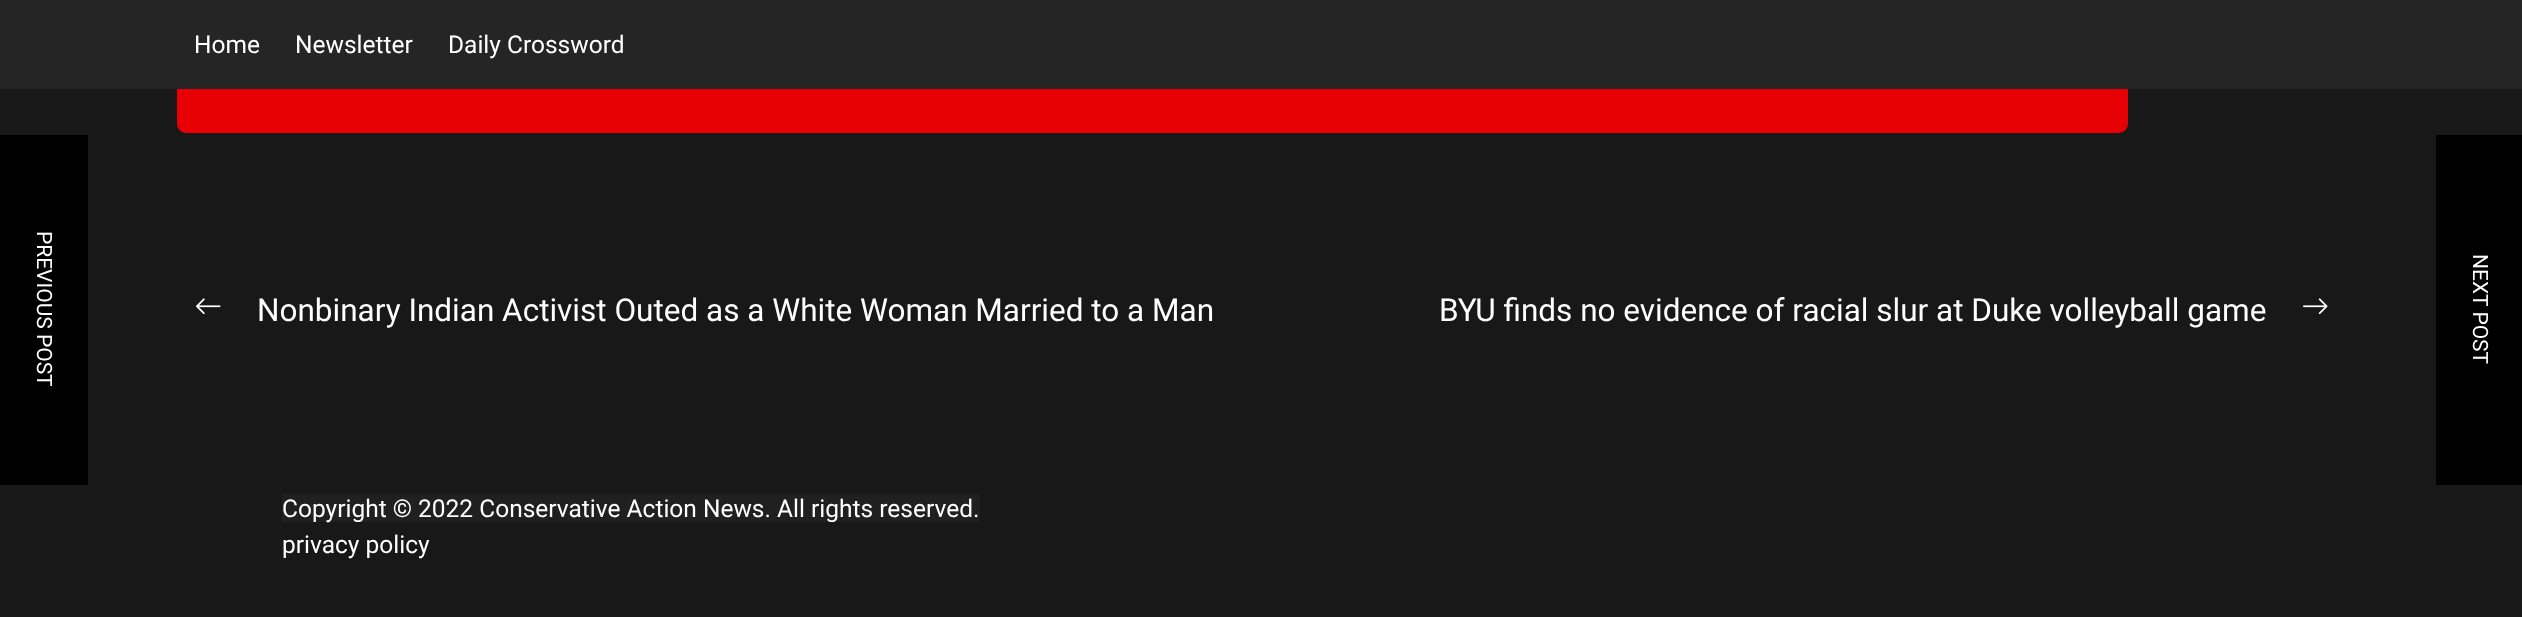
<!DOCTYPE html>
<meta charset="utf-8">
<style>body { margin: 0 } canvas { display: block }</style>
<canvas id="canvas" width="2522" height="617"></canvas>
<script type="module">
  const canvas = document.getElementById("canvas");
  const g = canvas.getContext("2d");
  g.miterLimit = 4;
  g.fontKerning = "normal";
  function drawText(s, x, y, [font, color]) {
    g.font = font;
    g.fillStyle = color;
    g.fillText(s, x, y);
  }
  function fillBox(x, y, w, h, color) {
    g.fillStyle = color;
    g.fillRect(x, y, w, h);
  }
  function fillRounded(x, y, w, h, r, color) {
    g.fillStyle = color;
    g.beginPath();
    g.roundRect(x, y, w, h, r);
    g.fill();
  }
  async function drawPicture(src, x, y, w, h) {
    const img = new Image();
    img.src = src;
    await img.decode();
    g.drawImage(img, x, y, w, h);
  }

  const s1 = ["24.5px Roboto", "#FFFFFF"];
  const s2 = ["31.5px Roboto", "#FFFFFF"];

  fillBox(0, 0, 2522, 617, "#181818");
  fillRounded(177, 46, 1951, 87, 9, "#E70003");
  fillBox(0, 0, 2522, 89, "#252525");
  drawText("Home", 194, 53, s1);
  drawText("Newsletter", 295, 53, s1);
  drawText("Daily Crossword", 448, 53, s1);
  fillBox(0, 135, 88, 350, "#000000");
  g.font = "21px Roboto";
  g.fillStyle = "#FFFFFF";
  g.save();
  g.translate(37, 231);
  g.rotate(90 * Math.PI / 180);
  g.fillText("PREVIOUS POST", 0, 0);
  g.restore();
  await drawPicture("pic1.png", 196, 298, 25, 17);
  drawText("Nonbinary Indian Activist Outed as a White Woman Married to a Man", 257, 321, s2);
  drawText("BYU finds no evidence of racial slur at Duke volleyball game", 1439, 321, s2);
  await drawPicture("pic2.png", 2303, 298, 25, 17);
  fillBox(2436, 135, 86, 350, "#000000");
  g.font = "21px Roboto";
  g.fillStyle = "#FFFFFF";
  g.save();
  g.translate(2473, 254);
  g.rotate(90 * Math.PI / 180);
  g.fillText("NEXT POST", 0, 0);
  g.restore();
  fillBox(282, 494, 698, 28, "#202020");
  drawText("Copyright © 2022 Conservative Action News. All rights reserved.", 282, 517, s1);
  drawText("privacy policy", 282, 553, s1);
</script>
